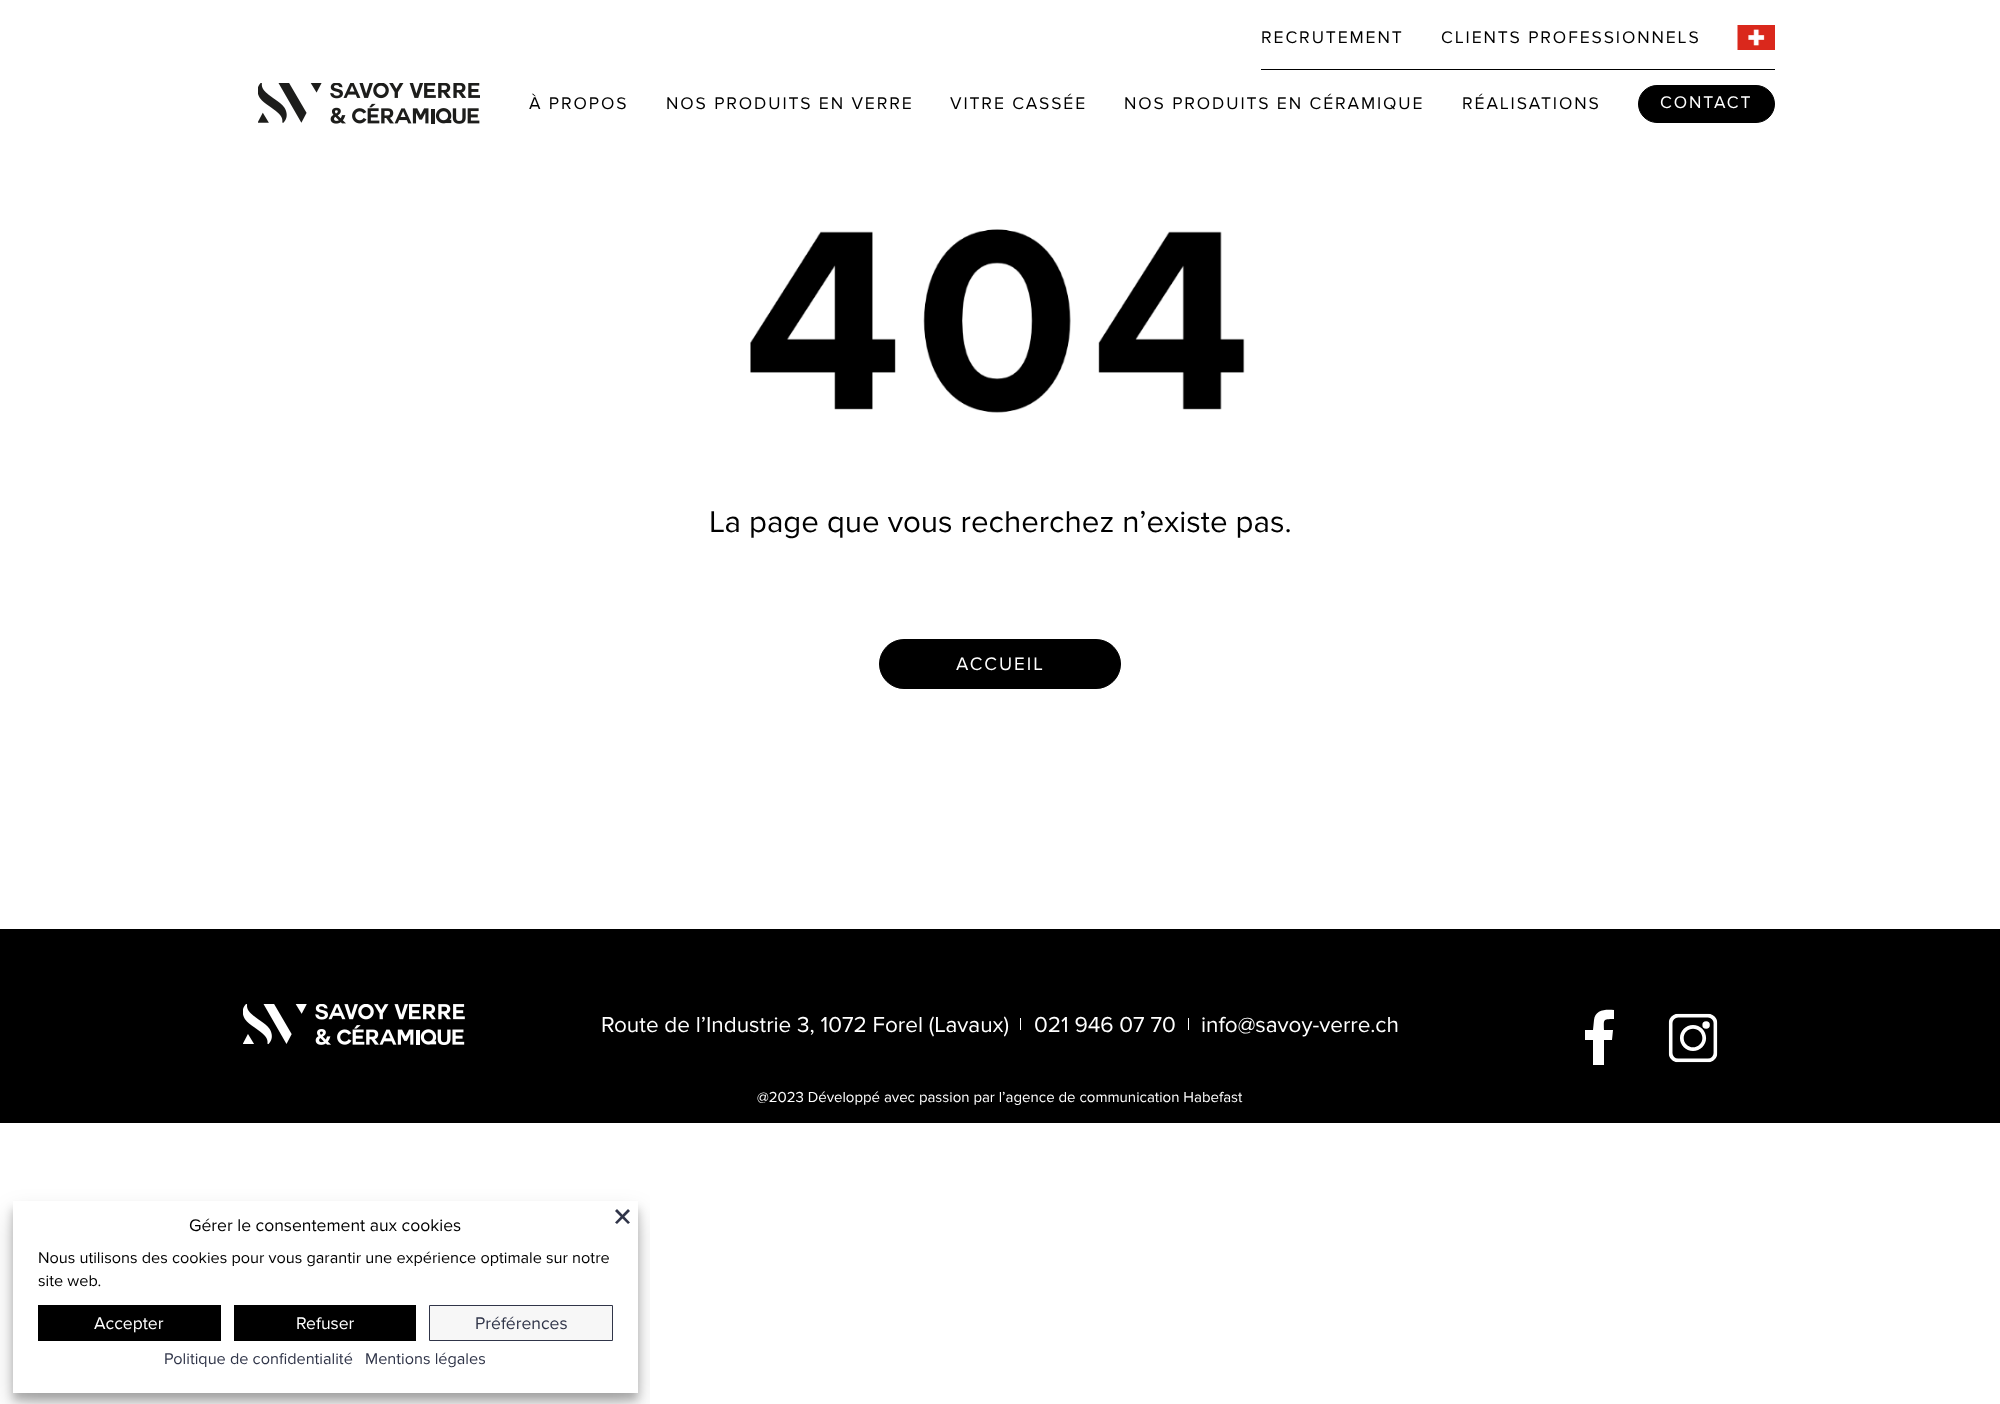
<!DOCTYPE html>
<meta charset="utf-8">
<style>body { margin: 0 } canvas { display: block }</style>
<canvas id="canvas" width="2000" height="1404"></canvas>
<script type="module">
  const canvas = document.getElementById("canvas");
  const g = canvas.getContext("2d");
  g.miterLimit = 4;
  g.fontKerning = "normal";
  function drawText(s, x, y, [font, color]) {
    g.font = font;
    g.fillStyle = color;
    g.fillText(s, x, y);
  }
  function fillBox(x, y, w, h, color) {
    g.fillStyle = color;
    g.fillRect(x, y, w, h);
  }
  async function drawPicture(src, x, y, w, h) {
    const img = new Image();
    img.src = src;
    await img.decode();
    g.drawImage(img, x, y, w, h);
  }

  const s1 = ["17.5px Proxima Nova", "#000000"];
  const s2 = ["17.5px Proxima Nova", "#FFFFFF"];
  const s3 = ["31.25px Proxima Nova", "#000000"];
  const s4 = ["18.75px Proxima Nova", "#FFFFFF"];
  const s5 = ["22.5px Proxima Nova", "#FFFFFF"];
  const s6 = ["15px Proxima Nova", "#FFFFFF"];
  const s7 = ["16.25px Proxima Nova", "#000000"];
  const s8 = ["17.5px Proxima Nova", "#303549"];
  const s9 = ["16.25px Proxima Nova", "#303549"];

  fillBox(0, 0, 2000, 1404, "#FFFFFF");
  fillBox(1261, 69, 514, 1, "#000000");
  g.letterSpacing = "1.9px";
  drawText("RECRUTEMENT", 1261, 43, s1);
  drawText("CLIENTS PROFESSIONNELS", 1441, 43, s1);
  await drawPicture("pic1.png", 1737, 25, 38, 25);
  await drawPicture("pic2.png", 258, 83, 222, 41);
  drawText("À PROPOS", 529, 109, s1);
  drawText("NOS PRODUITS EN VERRE", 666, 109, s1);
  drawText("VITRE CASSÉE", 950, 109, s1);
  drawText("NOS PRODUITS EN CÉRAMIQUE", 1124, 109, s1);
  drawText("RÉALISATIONS", 1462, 109, s1);
  g.beginPath();
  g.roundRect(1638.5, 85.5, 136, 37, 18.5);
  g.fill();
  g.strokeStyle = "#000000";
  g.stroke();
  drawText("CONTACT", 1660, 108, s2);
  await drawPicture("pic3.png", 750, 229, 495, 184);
  g.letterSpacing = "0px";
  drawText("La page que vous recherchez n’existe pas.", 709, 532, s3);
  g.beginPath();
  g.roundRect(879.5, 639.5, 241, 49, 24.5);
  g.fill();
  g.stroke();
  g.letterSpacing = "2px";
  drawText("ACCUEIL", 956, 670, s4);
  fillBox(0, 929, 2000, 194, "#000000");
  await drawPicture("pic4.png", 243, 1004, 222, 41);
  g.letterSpacing = "0px";
  drawText("Route de l’Industrie 3, 1072 Forel (Lavaux)", 601, 1032, s5);
  fillBox(1020, 1018, 1, 12, "#FFFFFF");
  drawText("021 946 07 70", 1034, 1032, s5);
  fillBox(1188, 1018, 1, 12, "#FFFFFF");
  drawText("info@savoy-verre.ch", 1201, 1032, s5);
  g.beginPath();
  g.moveTo(1604, 1065);
  g.lineTo(1604, 1040);
  g.lineTo(1612, 1040);
  g.lineTo(1613, 1030);
  g.lineTo(1604, 1030);
  g.bezierCurveTo(1604, 1020, 1602, 1019, 1614, 1019);
  g.lineTo(1614, 1010);
  g.bezierCurveTo(1605, 1009, 1595, 1010, 1594, 1020);
  g.lineTo(1593, 1030);
  g.lineTo(1585, 1030);
  g.lineTo(1585, 1040);
  g.lineTo(1593, 1040);
  g.lineTo(1593, 1065);
  g.closePath();
  g.fill("evenodd");
  await drawPicture("pic5.png", 1668, 1013, 50, 50);
  drawText("@2023 Développé avec passion par l’agence de communication Habefast", 757, 1102, s6);
  g.fillStyle = "rgba(0, 0, 0, 0.23)";
  g.filter = "blur(4px)";
  g.beginPath();
  g.rect(13, 1209, 625, 191);
  g.fill();
  g.filter = "none";
  g.save();
  g.beginPath();
  g.rect(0, 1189, 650, 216);
  g.clip();
  g.fillStyle = "rgba(0, 0, 0, 0.19)";
  g.filter = "blur(12.5px)";
  g.beginPath();
  g.rect(13, 1214, 625, 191);
  g.fill();
  g.filter = "none";
  g.restore();
  fillBox(13, 1201, 625, 192, "#FFFFFF");
  drawText("Gérer le consentement aux cookies", 189, 1231, s1);
  g.fillStyle = "#303549";
  g.beginPath();
  g.moveTo(628, 1209);
  g.lineTo(630, 1211);
  g.lineTo(617, 1224);
  g.lineTo(615, 1222.5);
  g.closePath();
  g.fill();
  g.beginPath();
  g.moveTo(615, 1211);
  g.lineTo(617, 1209);
  g.lineTo(630, 1222.5);
  g.lineTo(628, 1224);
  g.closePath();
  g.fill();
  drawText("Nous utilisons des cookies pour vous garantir une expérience optimale sur notre", 38, 1263, s7);
  drawText("site web.", 38, 1286, s7);
  fillBox(38, 1305, 183, 36, "#000000");
  drawText("Accepter", 94, 1329, s2);
  fillBox(234, 1305, 182, 36, "#000000");
  drawText("Refuser", 296, 1329, s2);
  g.fillStyle = "#F7F7F7";
  g.beginPath();
  g.rect(429.5, 1305.5, 183, 35);
  g.fill();
  g.strokeStyle = "#303549";
  g.stroke();
  drawText("Préférences", 475, 1329, s8);
  drawText("Politique de confidentialité", 164, 1364, s9);
  drawText("Mentions légales", 365, 1364, s9);
</script>
